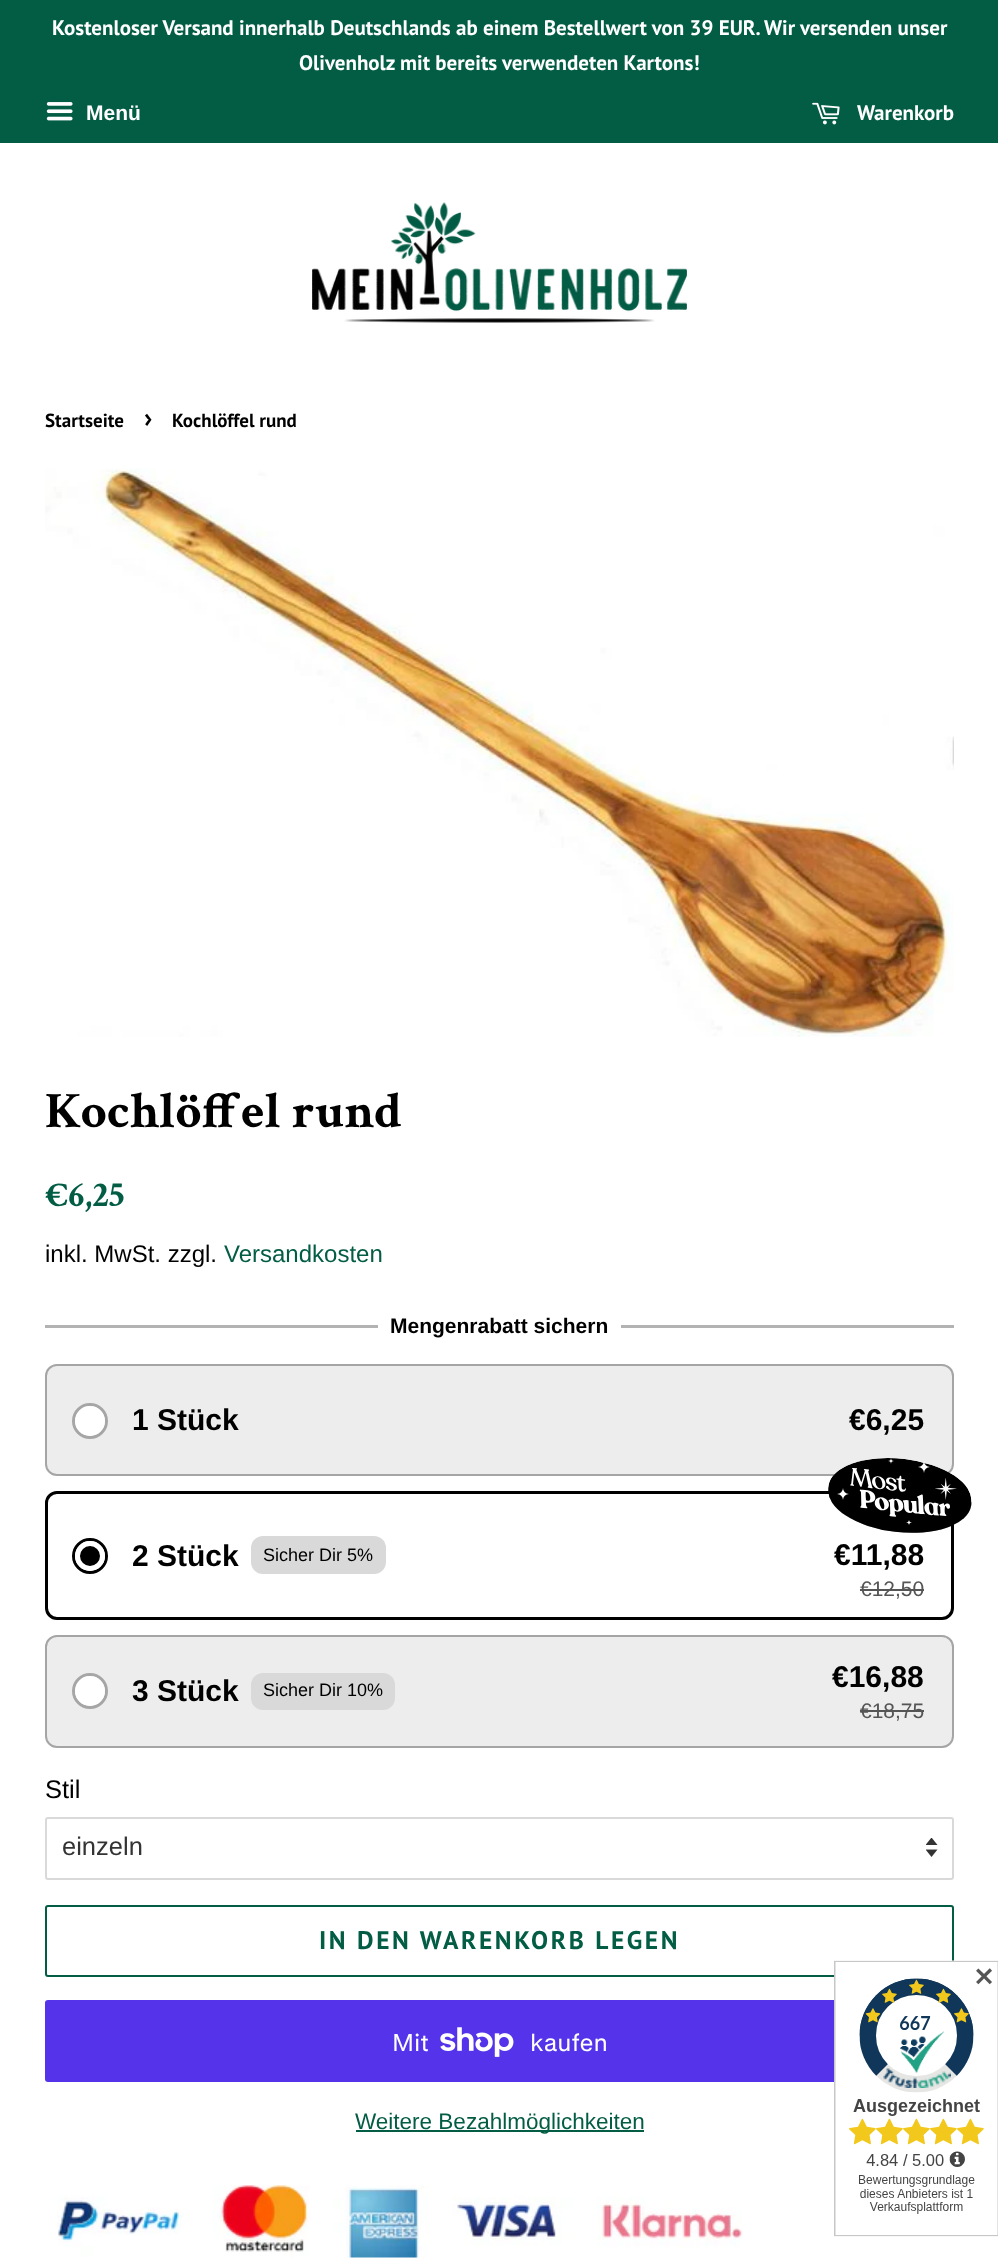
<!DOCTYPE html>
<meta charset="utf-8">
<style>body { margin: 0 } canvas { display: block }</style>
<canvas id="canvas" width="998" height="2259"></canvas>
<script type="module">
  const canvas = document.getElementById("canvas");
  const g = canvas.getContext("2d");
  g.miterLimit = 4;
  g.fontKerning = "normal";
  function drawText(s, x, y, [font, color]) {
    g.font = font;
    g.fillStyle = color;
    g.fillText(s, x, y);
  }
  function fillBox(x, y, w, h, color) {
    g.fillStyle = color;
    g.fillRect(x, y, w, h);
  }
  function fillRounded(x, y, w, h, r, color) {
    g.fillStyle = color;
    g.beginPath();
    g.roundRect(x, y, w, h, r);
    g.fill();
  }
  async function drawPicture(src, x, y, w, h) {
    const img = new Image();
    img.src = src;
    await img.decode();
    g.drawImage(img, x, y, w, h);
  }

  const s1 = ["bold 21px PT Sans", "#FFFFFF"];
  const s2 = ["bold 21px Liberation Sans", "#FFFFFF"];
  const s3 = ["bold 19px PT Sans", "#000000"];
  const s4 = ["bold 27px PT Sans", "#000000"];
  const s5 = ["bold 51px Crimson Text", "#000000"];
  const s6 = ["bold 36px Crimson Text", "#035C44"];
  const s7 = ["24px Liberation Sans", "#000000"];
  const s8 = ["24px Liberation Sans", "#035C44"];
  const s9 = ["bold 21px Liberation Sans", "#000000"];
  const s10 = ["bold 30px Liberation Sans", "#000000"];
  const s11 = ["18px Liberation Sans", "#000000"];
  const s12 = ["21px Liberation Sans", "#555555"];
  const s13 = ["25.5px Liberation Sans", "#000000"];
  const s14 = ["25.5px Liberation Sans", "#333333"];
  const s15 = ["bold 25.5px PT Sans", "#035C44"];
  const s16 = ["24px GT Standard", "#FFFFFF"];
  const s17 = ["22.5px Liberation Sans", "#035C44"];
  const s18 = ["bold 25.5px DejaVu Sans", "#555555"];

  fillBox(0, 0, 998, 2259, "#FFFFFF");
  fillBox(0, 0, 998, 143, "#035C44");
  drawText("Kostenloser Versand innerhalb Deutschlands ab einem Bestellwert von 39 EUR. Wir versenden unser", 52, 35, s1);
  drawText("Olivenholz mit bereits verwendeten Kartons!", 299, 70, s1);
  await drawPicture("pic1.png", 46, 102, 27, 19);
  drawText("Menü", 86, 120, s2);
  await drawPicture("pic2.png", 812, 102, 28, 23);
  drawText("Warenkorb", 857, 120, s1);
  await drawPicture("pic3.png", 312, 202, 375, 121);
  drawText("Startseite", 45, 427, s3);
  drawText("›", 144, 427, s4);
  drawText("Kochlöffel rund", 172, 427, s3);
  await drawPicture("pic4.png", 45, 468, 909, 569);
  drawText("Kochlöffel rund", 45, 1127, s5);
  drawText("€6,25", 45, 1206, s6);
  drawText("inkl. MwSt. zzgl.", 45, 1262, s7);
  drawText("Versandkosten", 224, 1262, s8);
  fillBox(45, 1325, 333, 3, "#B3B3B3");
  drawText("Mengenrabatt sichern", 390, 1333, s9);
  fillBox(621, 1325, 333, 3, "#B3B3B3");
  fillRounded(45, 1364, 909, 112, 12, "#EDEDED");
  g.beginPath();
  g.roundRect(46, 1365, 907, 110, 11);
  g.strokeStyle = "rgba(0, 0, 0, 0.3)";
  g.lineWidth = 2;
  g.stroke();
  g.beginPath();
  g.arc(90, 1421, 16.5, 0, Math.PI * 2);
  g.strokeStyle = "#A6A6A6";
  g.lineWidth = 3;
  g.stroke();
  g.fillStyle = "#FFFFFF";
  g.beginPath();
  g.arc(90, 1421, 12.5, 0, Math.PI * 2);
  g.fill();
  g.strokeStyle = "#FFFFFF";
  g.lineWidth = 5;
  g.stroke();
  drawText("1 Stück", 132, 1430, s10);
  drawText("€6,25", 849, 1430, s10);
  g.beginPath();
  g.roundRect(46.5, 1492.5, 906, 126, 10.5);
  g.strokeStyle = "#000000";
  g.lineWidth = 3;
  g.stroke();
  await drawPicture("pic5.png", 828, 1458, 144, 75);
  g.beginPath();
  g.arc(90, 1556, 16.5, 0, Math.PI * 2);
  g.stroke();
  g.beginPath();
  g.arc(90, 1556, 12.5, 0, Math.PI * 2);
  g.fill();
  g.strokeStyle = "#FFFFFF";
  g.lineWidth = 5;
  g.stroke();
  drawText("2 Stück", 132, 1566, s10);
  fillRounded(251, 1536, 135, 38, 12, "#D9D9D9");
  drawText("Sicher Dir 5%", 263, 1561, s11);
  drawText("€11,88", 834, 1565, s10);
  drawText("€12,50", 860, 1596, s12);
  fillBox(860, 1589, 64, 2, "#555555");
  fillRounded(45, 1635, 909, 113, 12, "#EDEDED");
  g.beginPath();
  g.roundRect(46, 1636, 907, 111, 11);
  g.strokeStyle = "rgba(0, 0, 0, 0.3)";
  g.lineWidth = 2;
  g.stroke();
  g.beginPath();
  g.arc(90, 1691, 16.5, 0, Math.PI * 2);
  g.strokeStyle = "#A6A6A6";
  g.lineWidth = 3;
  g.stroke();
  g.fillStyle = "#FFFFFF";
  g.beginPath();
  g.arc(90, 1691, 12.5, 0, Math.PI * 2);
  g.fill();
  g.strokeStyle = "#FFFFFF";
  g.lineWidth = 5;
  g.stroke();
  drawText("3 Stück", 132, 1701, s10);
  fillRounded(251, 1673, 144, 37, 12, "#D9D9D9");
  drawText("Sicher Dir 10%", 263, 1696, s11);
  drawText("€16,88", 832, 1687, s10);
  drawText("€18,75", 860, 1718, s12);
  fillBox(860, 1710, 64, 2, "#555555");
  drawText("Stil", 45, 1798, s13);
  await drawPicture("pic6.png", 926, 1838, 12, 19);
  g.beginPath();
  g.roundRect(46, 1818, 907, 61, 2);
  g.strokeStyle = "#D9D9D9";
  g.lineWidth = 2;
  g.stroke();
  drawText("einzeln", 62, 1855, s14);
  g.beginPath();
  g.roundRect(46, 1906, 907, 70, 2);
  g.strokeStyle = "#035C44";
  g.stroke();
  g.letterSpacing = "2.55px";
  drawText("IN DEN WARENKORB LEGEN", 319, 1949, s15);
  fillRounded(45, 2000, 909, 82, 3, "#5433EB");
  g.letterSpacing = "0px";
  drawText("Mit", 392, 2051, s16);
  await drawPicture("pic7.png", 440, 2027, 74, 30);
  drawText("kaufen", 530, 2051, s16);
  fillBox(356, 2130, 288, 2, "#035C44");
  drawText("Weitere Bezahlmöglichkeiten", 355, 2129, s17);
  await drawPicture("pic8.png", 57, 2185, 686, 73);
  await drawPicture("pic9.png", 834, 1960, 164, 277);
  drawText("✕", 973, 1986, s18);
</script>
